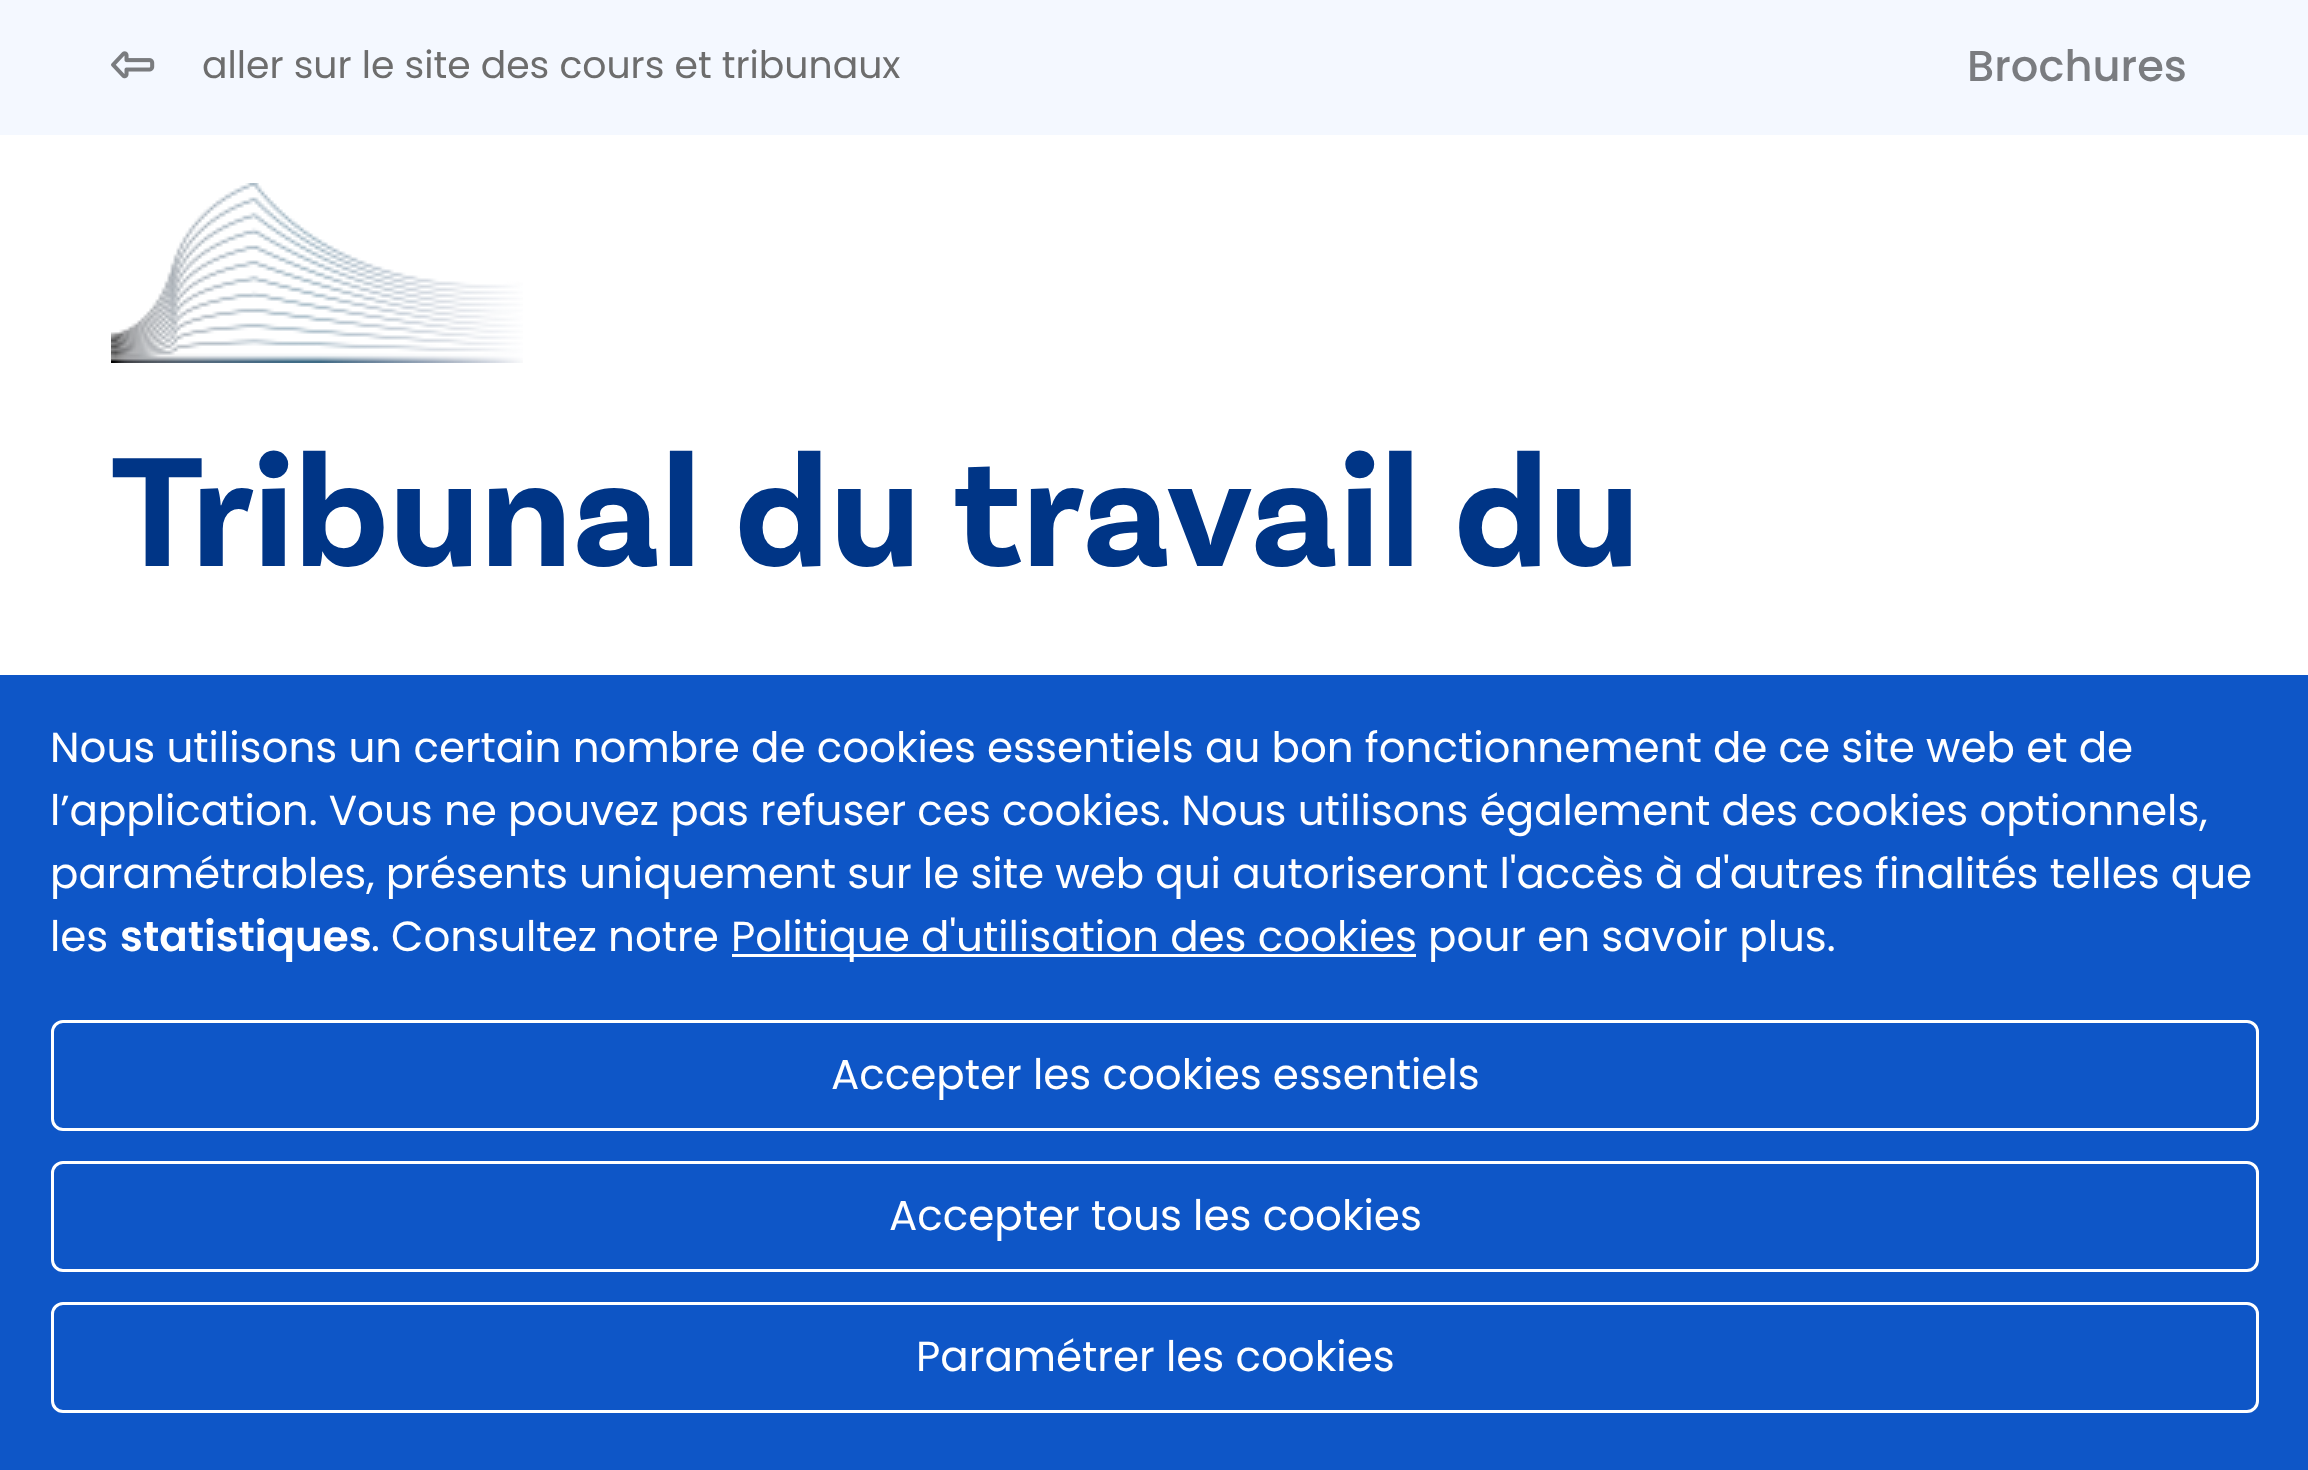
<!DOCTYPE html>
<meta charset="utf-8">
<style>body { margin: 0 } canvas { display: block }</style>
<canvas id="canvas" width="2308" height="1470"></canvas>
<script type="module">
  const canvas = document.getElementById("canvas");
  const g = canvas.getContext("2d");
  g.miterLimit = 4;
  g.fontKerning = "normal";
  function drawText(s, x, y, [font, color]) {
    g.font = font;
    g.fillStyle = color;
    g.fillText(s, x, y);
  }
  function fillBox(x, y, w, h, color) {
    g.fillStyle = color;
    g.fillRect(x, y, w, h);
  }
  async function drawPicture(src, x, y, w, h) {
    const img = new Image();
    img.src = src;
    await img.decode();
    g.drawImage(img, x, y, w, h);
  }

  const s1 = ["37.75px Poppins", "#6D6D6D"];
  const s2 = ["500 43.25px Poppins", "#7A7C80"];
  const s3 = ["bold 163.25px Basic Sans", "#003586"];
  const s4 = ["42px Poppins", "#FFFFFF"];
  const s5 = ["600 42px Poppins", "#FFFFFF"];

  fillBox(0, 0, 2308, 1470, "#FFFFFF");
  fillBox(0, 0, 2308, 135, "#F4F8FF");
  await drawPicture("pic1.png", 111, 51, 44, 28);
  drawText("aller sur le site des cours et tribunaux", 202, 78, s1);
  drawText("Brochures", 1967, 81, s2);
  await drawPicture("pic2.png", 111, 183, 412, 180);
  drawText("Tribunal du travail du", 111, 566, s3);
  fillBox(0, 675, 2308, 795, "#0E56C7");
  drawText("Nous utilisons un certain nombre de cookies essentiels au bon fonctionnement de ce site web et de", 50, 762, s4);
  drawText("l’application. Vous ne pouvez pas refuser ces cookies. Nous utilisons également des cookies optionnels,", 50, 825, s4);
  drawText("paramétrables, présents uniquement sur le site web qui autoriseront l'accès à d'autres finalités telles que", 50, 888, s4);
  drawText("les", 50, 951, s4);
  drawText("statistiques", 120, 951, s5);
  drawText(". Consultez notre", 371, 951, s4);
  fillBox(732, 954, 684, 3, "#FFFFFF");
  drawText("Politique d'utilisation des cookies pour en savoir plus.", 731, 951, s4);
  g.beginPath();
  g.roundRect(52.5, 1021.5, 2205, 108, 10.5);
  g.strokeStyle = "#FFFFFF";
  g.lineWidth = 3;
  g.stroke();
  drawText("Accepter les cookies essentiels", 831, 1089, s4);
  g.beginPath();
  g.roundRect(52.5, 1162.5, 2205, 108, 10.5);
  g.stroke();
  drawText("Accepter tous les cookies", 889, 1230, s4);
  g.beginPath();
  g.roundRect(52.5, 1303.5, 2205, 108, 10.5);
  g.stroke();
  drawText("Paramétrer les cookies", 916, 1371, s4);
</script>
